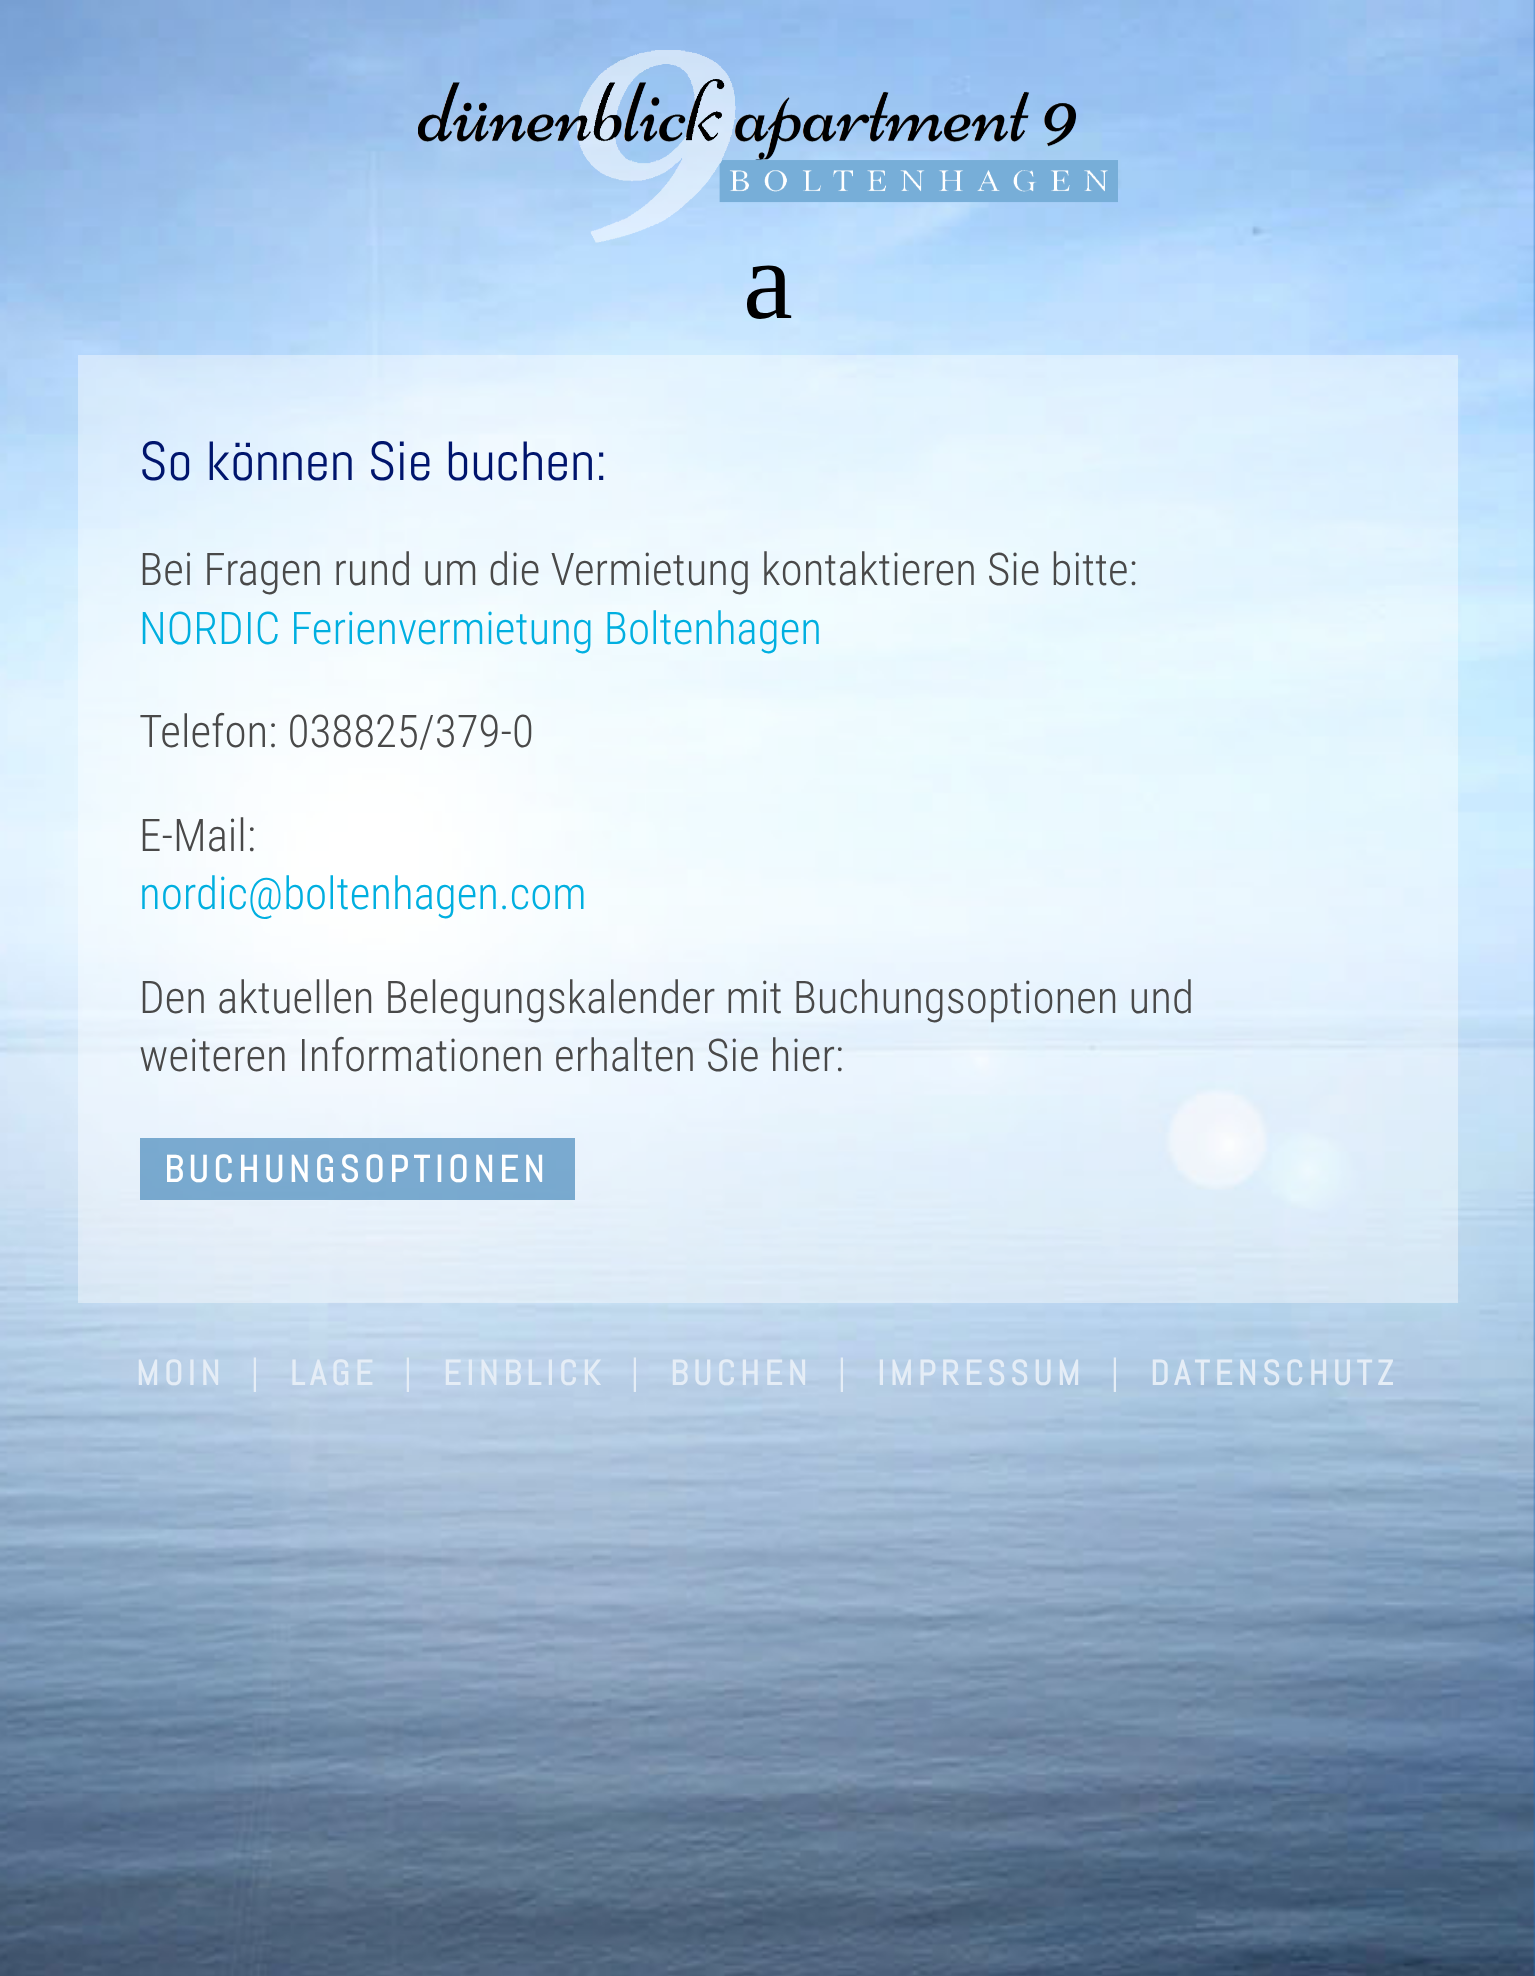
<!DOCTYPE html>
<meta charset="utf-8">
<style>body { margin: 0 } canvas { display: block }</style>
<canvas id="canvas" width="1535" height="1976"></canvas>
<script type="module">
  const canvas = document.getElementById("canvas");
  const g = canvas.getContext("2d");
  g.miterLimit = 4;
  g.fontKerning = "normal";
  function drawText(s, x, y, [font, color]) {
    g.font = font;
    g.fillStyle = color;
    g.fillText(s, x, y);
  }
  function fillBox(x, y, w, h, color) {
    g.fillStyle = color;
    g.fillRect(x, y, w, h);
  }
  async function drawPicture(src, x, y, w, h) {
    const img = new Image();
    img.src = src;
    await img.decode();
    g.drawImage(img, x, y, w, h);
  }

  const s1 = ["112px Liberation Serif", "#000000"];
  const s2 = ["55px Abel", "#00156D"];
  const s3 = ["300 45px Roboto Condensed", "#494949"];
  const s4 = ["300 45px Roboto Condensed", "#00AFE0"];
  const s5 = ["bold 37.5px Abel", "#FFFFFF"];
  const s6 = ["bold 35px Abel", "#E5EDF6"];
  const s7 = ["35px Abel", "#E5EDF6"];

  fillBox(0, 0, 1535, 1976, "#1E73BE");
  await drawPicture("pic1.png", 0, 0, 1535, 1976);
  await drawPicture("pic2.png", 418, 50, 700, 193);
  drawText("a", 743, 318, s1);
  fillBox(78, 355, 1380, 948, "rgba(255, 255, 255, 0.41)");
  drawText("So können Sie buchen:", 139, 480, s2);
  drawText("Bei Fragen rund um die Vermietung kontaktieren Sie bitte:", 139, 585, s3);
  drawText("NORDIC Ferienvermietung Boltenhagen", 139, 644, s4);
  drawText("Telefon: 038825/379-0", 139, 747, s3);
  drawText("E-Mail:", 139, 851, s3);
  drawText("nordic@boltenhagen.com", 139, 909, s4);
  drawText("Den aktuellen Belegungskalender mit Buchungsoptionen und", 139, 1013, s3);
  drawText("weiteren Informationen erhalten Sie hier:", 139, 1071, s3);
  fillBox(140, 1138, 435, 62, "rgba(0, 89, 158, 0.48)");
  g.letterSpacing = "5px";
  drawText("BUCHUNGSOPTIONEN", 164, 1182, s5);
  drawText("MOIN", 136, 1385, s6);
  drawText("|", 251, 1385, s7);
  drawText("LAGE", 290, 1385, s6);
  drawText("|", 404, 1385, s7);
  drawText("EINBLICK", 443, 1385, s6);
  drawText("|", 631, 1385, s7);
  drawText("BUCHEN", 670, 1385, s6);
  drawText("|", 838, 1385, s7);
  drawText("IMPRESSUM", 877, 1385, s6);
  drawText("|", 1111, 1385, s7);
  drawText("DATENSCHUTZ", 1150, 1385, s6);
</script>
